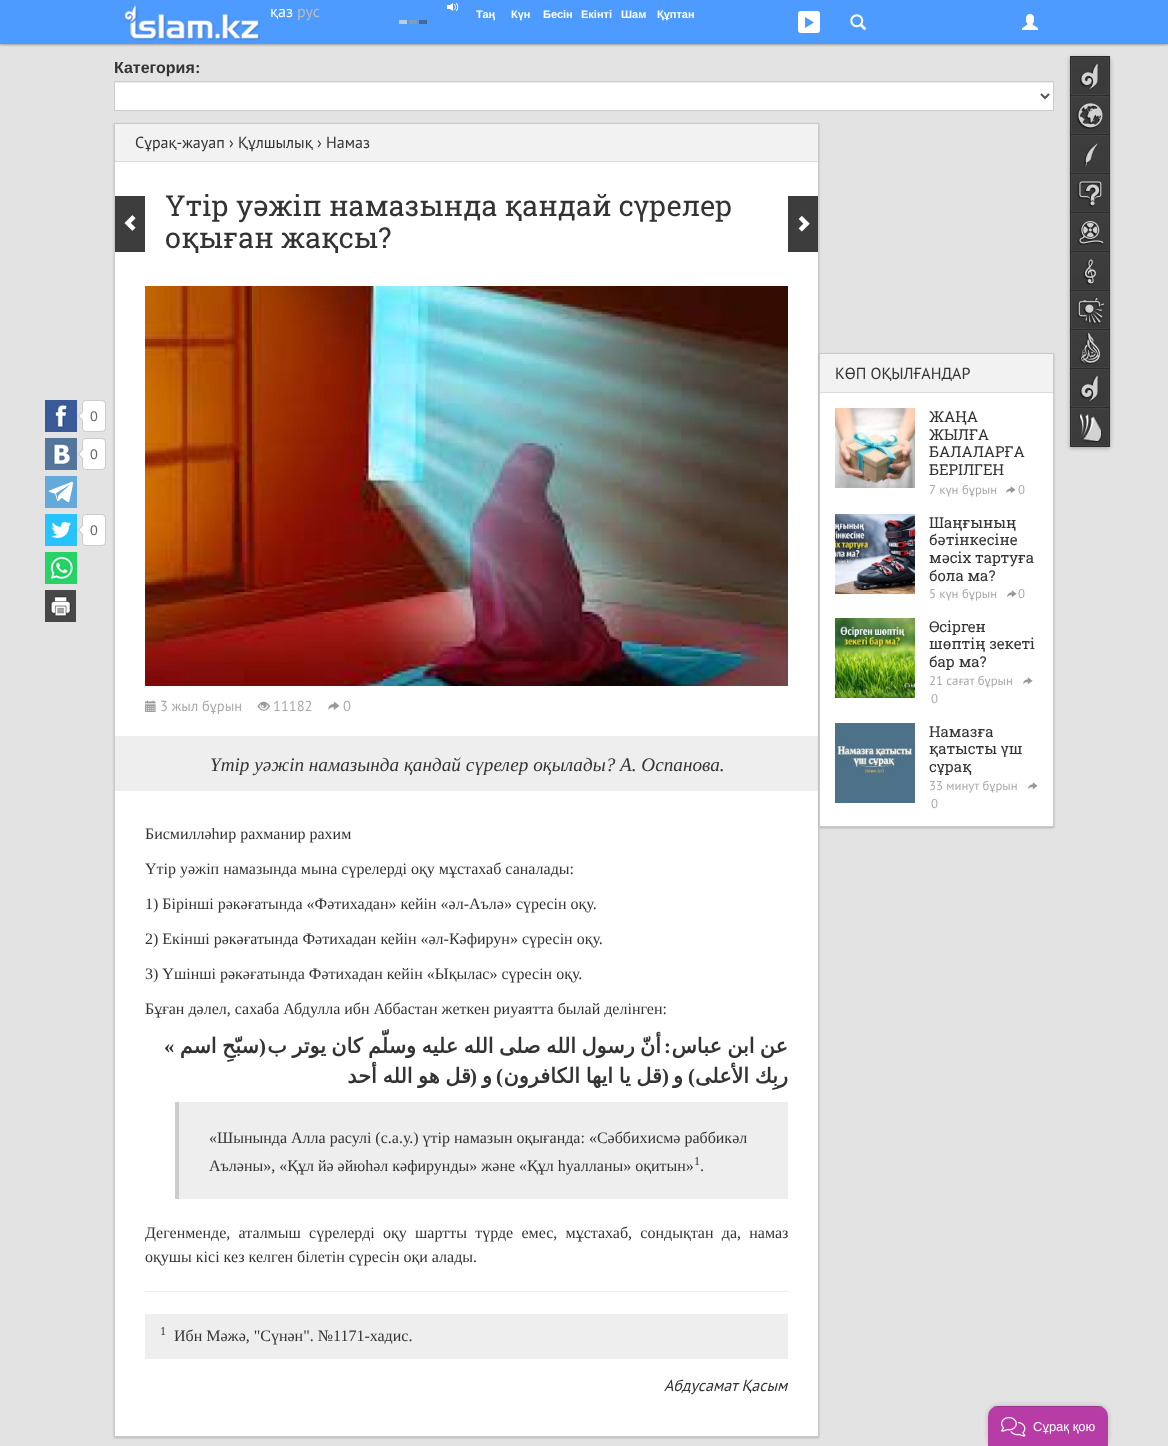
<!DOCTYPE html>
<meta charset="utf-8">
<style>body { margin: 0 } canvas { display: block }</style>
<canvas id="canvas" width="1168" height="1446"></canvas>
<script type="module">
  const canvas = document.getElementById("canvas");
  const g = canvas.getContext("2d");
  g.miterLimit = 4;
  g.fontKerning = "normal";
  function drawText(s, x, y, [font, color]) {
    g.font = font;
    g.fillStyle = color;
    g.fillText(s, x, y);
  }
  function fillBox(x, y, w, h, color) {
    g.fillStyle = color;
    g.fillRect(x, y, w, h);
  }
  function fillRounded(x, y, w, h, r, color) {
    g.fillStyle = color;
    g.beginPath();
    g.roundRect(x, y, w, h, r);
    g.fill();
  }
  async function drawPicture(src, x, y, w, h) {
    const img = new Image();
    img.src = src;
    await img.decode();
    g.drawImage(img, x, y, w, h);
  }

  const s1 = ["16px PT Sans", "#FFFFFF"];
  const s2 = ["16px PT Sans", "#BBBBBB"];
  const s3 = ["bold 11px Liberation Sans", "#FFFFFF"];
  const s4 = ["bold 16px Liberation Sans", "#333333"];
  const s5 = ["bold 16px PT Sans", "#333333"];
  const s6 = ["16px PT Sans", "#333333"];
  const s7 = ["28.75px Roboto Slab", "#333333"];
  const s8 = ["14px Liberation Sans", "#666666"];
  const s9 = ["14.5px PT Sans", "#AAAAAA"];
  const s10 = ["italic 19.2px Liberation Serif", "#333333"];
  const s11 = ["16px Liberation Serif", "#333333"];
  const s12 = ["bold 20.75px DejaVu Sans", "#333333"];
  const s13 = ["bold 20.75px Liberation Serif", "#333333"];
  const s14 = ["12px Liberation Serif", "#333333"];
  const s15 = ["italic 16px PT Sans", "#333333"];
  const s16 = ["15px Roboto Slab", "#333333"];
  const s17 = ["12.75px PT Sans", "#AAAAAA"];
  const s18 = ["13px Liberation Sans", "#FFFFFF"];

  fillBox(0, 0, 1168, 1446, "#E3E3E3");
  g.fillStyle = "#999999";
  g.filter = "blur(1px)";
  g.beginPath();
  g.rect(0, 1, 1168, 44);
  g.fill();
  g.filter = "none";
  fillBox(0, 0, 1168, 44, "#4E9BFF");
  await drawPicture("pic1.png", 124, 5, 136, 36);
  drawText("қаз", 270, 17, s1);
  drawText("рус", 297, 17, s2);
  await drawPicture("pic2.png", 447, 2, 12, 9);
  drawText("Таң", 476, 18, s3);
  drawText("Күн", 511, 18, s3);
  drawText("Бесін", 543, 18, s3);
  drawText("Екінті", 581, 18, s3);
  drawText("Шам", 621, 18, s3);
  drawText("Құптан", 657, 18, s3);
  await drawPicture("pic3.png", 399, 20, 28, 4);
  fillRounded(798, 11, 22, 22, 3, "#FFFFFF");
  g.fillStyle = "#4E9BFF";
  g.beginPath();
  g.moveTo(805, 28);
  g.lineTo(814, 22.5);
  g.lineTo(805, 17);
  g.closePath();
  g.fill();
  await drawPicture("pic4.png", 850, 14, 17, 17);
  await drawPicture("pic5.png", 1022, 14, 16, 16);
  drawText("Категория", 114, 73, s4);
  drawText(":", 195, 73, s5);
  fillBox(115, 83, 938, 27, "#FFFFFF");
  fillBox(115, 82, 938, 1, "#ECECEC");
  g.strokeStyle = "#CCCCCC";
  g.strokeRect(114.5, 81.5, 939, 29);
  g.beginPath();
  g.moveTo(1041, 94);
  g.lineTo(1045, 98);
  g.lineTo(1049, 94);
  g.strokeStyle = "#555555";
  g.lineWidth = 2;
  g.stroke();
  g.fillStyle = "rgba(0, 0, 0, 0.3)";
  g.filter = "blur(2px)";
  g.beginPath();
  g.rect(1070, 58, 40, 390);
  g.fill();
  g.filter = "none";
  g.strokeStyle = "#2C2C2C";
  g.lineWidth = 1;
  g.strokeRect(1070.5, 56.5, 39, 39);
  await drawPicture("pic6.png", 1072, 58, 36, 36);
  g.strokeStyle = "#434343";
  g.strokeRect(1071.5, 57.5, 37, 37);
  await drawPicture("pic7.png", 1079, 63, 19, 28);
  g.strokeStyle = "#2C2C2C";
  g.strokeRect(1070.5, 95.5, 39, 39);
  await drawPicture("pic6.png", 1072, 97, 36, 36);
  g.strokeStyle = "#434343";
  g.strokeRect(1071.5, 96.5, 37, 37);
  await drawPicture("pic8.png", 1076, 103, 27, 26);
  g.strokeStyle = "#2C2C2C";
  g.strokeRect(1070.5, 134.5, 39, 39);
  await drawPicture("pic6.png", 1072, 136, 36, 36);
  g.strokeStyle = "#434343";
  g.strokeRect(1071.5, 135.5, 37, 37);
  await drawPicture("pic9.png", 1084, 143, 14, 25);
  g.strokeStyle = "#2C2C2C";
  g.strokeRect(1070.5, 173.5, 39, 39);
  await drawPicture("pic6.png", 1072, 175, 36, 36);
  g.strokeStyle = "#434343";
  g.strokeRect(1071.5, 174.5, 37, 37);
  await drawPicture("pic10.png", 1077, 181, 25, 26);
  g.strokeStyle = "#2C2C2C";
  g.strokeRect(1070.5, 212.5, 39, 39);
  await drawPicture("pic6.png", 1072, 214, 36, 36);
  g.strokeStyle = "#434343";
  g.strokeRect(1071.5, 213.5, 37, 37);
  await drawPicture("pic11.png", 1077, 221, 27, 24);
  g.strokeStyle = "#2C2C2C";
  g.strokeRect(1070.5, 251.5, 39, 39);
  await drawPicture("pic6.png", 1072, 253, 36, 36);
  g.strokeStyle = "#434343";
  g.strokeRect(1071.5, 252.5, 37, 37);
  await drawPicture("pic12.png", 1083, 259, 13, 26);
  g.strokeStyle = "#2C2C2C";
  g.strokeRect(1070.5, 290.5, 39, 39);
  await drawPicture("pic6.png", 1072, 292, 36, 36);
  g.strokeStyle = "#434343";
  g.strokeRect(1071.5, 291.5, 37, 37);
  await drawPicture("pic13.png", 1077, 297, 27, 28);
  g.strokeStyle = "#2C2C2C";
  g.strokeRect(1070.5, 329.5, 39, 39);
  await drawPicture("pic6.png", 1072, 331, 36, 36);
  g.strokeStyle = "#434343";
  g.strokeRect(1071.5, 330.5, 37, 37);
  await drawPicture("pic14.png", 1079, 333, 21, 31);
  g.strokeStyle = "#2C2C2C";
  g.strokeRect(1070.5, 368.5, 39, 39);
  await drawPicture("pic6.png", 1072, 370, 36, 36);
  g.strokeStyle = "#434343";
  g.strokeRect(1071.5, 369.5, 37, 37);
  await drawPicture("pic7.png", 1079, 375, 19, 28);
  g.strokeStyle = "#2C2C2C";
  g.strokeRect(1070.5, 407.5, 39, 39);
  await drawPicture("pic6.png", 1072, 409, 36, 36);
  g.strokeStyle = "#434343";
  g.strokeRect(1071.5, 408.5, 37, 37);
  await drawPicture("pic15.png", 1079, 414, 23, 28);
  g.fillStyle = "#B3B3B3";
  g.filter = "blur(1px)";
  g.beginPath();
  g.rect(114, 124, 705, 1314);
  g.fill();
  g.filter = "none";
  fillBox(115, 162, 703, 1274, "#FFFFFF");
  g.strokeStyle = "#C9C9C9";
  g.strokeRect(114.5, 123.5, 704, 1313);
  fillBox(115, 124, 703, 37, "#F2F2F2");
  fillBox(115, 161, 703, 1, "#DDDDDD");
  drawText("Сұрақ-жауап › Құлшылық › Намаз", 135, 148, s6);
  fillBox(115, 196, 30, 56, "#3D3D3D");
  await drawPicture("pic16.png", 124, 215, 12, 16);
  drawText("Үтір уәжіп намазында қандай сүрелер", 165, 216, s7);
  drawText("оқыған жақсы?", 165, 248, s7);
  fillBox(788, 196, 30, 56, "#3D3D3D");
  await drawPicture("pic17.png", 798, 215, 12, 17);
  await drawPicture("pic18.png", 145, 286, 643, 400);
  await drawPicture("pic19.png", 45, 400, 32, 32);
  await drawPicture("pic20.png", 86, 400, 20, 32);
  await drawPicture("pic21.png", 78, 400, 8, 32);
  drawText("0", 90, 421, s8);
  await drawPicture("pic22.png", 45, 438, 32, 32);
  await drawPicture("pic20.png", 86, 438, 20, 32);
  await drawPicture("pic21.png", 78, 438, 8, 32);
  drawText("0", 90, 459, s8);
  await drawPicture("pic23.png", 45, 476, 32, 32);
  await drawPicture("pic24.png", 45, 514, 32, 32);
  await drawPicture("pic20.png", 86, 514, 20, 32);
  await drawPicture("pic21.png", 78, 514, 8, 32);
  drawText("0", 90, 535, s8);
  await drawPicture("pic25.png", 45, 552, 32, 32);
  await drawPicture("pic26.png", 45, 590, 31, 32);
  await drawPicture("pic27.png", 145, 700, 11, 12);
  drawText("3 жыл бұрын", 160, 711, s9);
  await drawPicture("pic28.png", 257, 701, 13, 10);
  drawText("11182", 273, 711, s9);
  await drawPicture("pic29.png", 328, 701, 12, 9);
  drawText("0", 343, 711, s9);
  fillBox(115, 736, 703, 55, "#EEEEEE");
  drawText("Үтір уәжіп намазында қандай сүрелер оқылады? А. Оспанова.", 210, 771, s10);
  drawText("Бисмилләһир рахманир рахим", 145, 839, s11);
  drawText("Үтір уәжіп намазында мына сүрелерді оқу мұстахаб саналады:", 145, 874, s11);
  drawText("1) Бірінші рәкәғатында «Фәтихадан» кейін «әл-Аълә» сүресін оқу.", 145, 909, s11);
  drawText("2) Екінші рәкәғатында Фәтихадан кейін «әл-Кәфирун» сүресін оқу.", 145, 944, s11);
  drawText("3) Үшінші рәкәғатында Фәтихадан кейін «Ықылас» сүресін оқу.", 145, 979, s11);
  drawText("Бұған дәлел, сахаба Абдулла ибн Аббастан жеткен риуаятта былай делінген:", 145, 1014, s11);
  g.wordSpacing = "-1.25px";
  g.direction = "rtl";
  drawText("سبّحِ اسم", 259, 1053, s12);
  g.wordSpacing = "0px";
  drawText("(", 266, 1053, s13);
  g.wordSpacing = "-1.25px";
  drawText("أنّ رسول الله صلى الله عليه وسلّم كان يوتر ب", 661, 1053, s12);
  drawText("عن ابن عباس", 788, 1053, s12);
  g.wordSpacing = "0px";
  g.direction = "ltr";
  drawText("«", 164, 1053, s13);
  g.direction = "rtl";
  drawText(":", 671, 1053, s13);
  g.wordSpacing = "-1px";
  drawText("قل هو الله أحد", 471, 1083, s12);
  g.wordSpacing = "0px";
  drawText("(", 477, 1083, s13);
  drawText("و", 492, 1083, s12);
  drawText(")", 503, 1083, s13);
  g.wordSpacing = "-1px";
  drawText("قل يا ايها الكافرون", 662, 1083, s12);
  g.wordSpacing = "0px";
  drawText("(", 669, 1083, s13);
  drawText("و", 683, 1083, s12);
  drawText(")", 695, 1083, s13);
  g.wordSpacing = "-1px";
  drawText("ربِك الأعلى", 788, 1083, s12);
  fillBox(179, 1102, 609, 97, "#EEEEEE");
  fillBox(175, 1102, 4, 97, "#CCCCCC");
  g.wordSpacing = "0px";
  g.direction = "ltr";
  drawText("«Шынында Алла расулі (с.а.у.) үтір намазын оқығанда: «Сәббихисмә раббикәл", 209, 1143, s11);
  drawText("Аъләны», «Құл йә әйюһәл кәфирунды» және «Құл һуалланы» оқитын»", 209, 1171, s11);
  drawText("1", 694, 1165, s14);
  drawText(".", 700, 1171, s11);
  g.wordSpacing = "4.25px";
  drawText("Дегенменде, аталмыш сүрелерді оқу шартты түрде емес, мұстахаб, сондықтан да, намаз", 145, 1238, s11);
  g.wordSpacing = "0px";
  drawText("оқушы кісі кез келген білетін сүресін оқи алады.", 145, 1262, s11);
  fillBox(145, 1291, 643, 1, "#EEEEEE");
  fillBox(145, 1314, 643, 45, "#EEEEEE");
  drawText("1", 160, 1335, s14);
  drawText("Ибн Мәжә, \"Сүнән\". №1171-хадис.", 174, 1341, s11);
  drawText("Абдусамат Қасым", 664, 1391, s15);
  g.fillStyle = "#B3B3B3";
  g.filter = "blur(1px)";
  g.beginPath();
  g.rect(819, 354, 235, 474);
  g.fill();
  g.filter = "none";
  fillBox(820, 393, 233, 433, "#FFFFFF");
  g.strokeRect(819.5, 353.5, 234, 473);
  fillBox(820, 354, 233, 38, "#F2F2F2");
  fillBox(820, 392, 233, 1, "#DDDDDD");
  drawText("КӨП ОҚЫЛҒАНДАР", 835, 379, s6);
  await drawPicture("pic30.png", 835, 408, 80, 80);
  drawText("ЖАҢА", 929, 422, s16);
  drawText("ЖЫЛҒА", 929, 440, s16);
  drawText("БАЛАЛАРҒА", 929, 457, s16);
  drawText("БЕРІЛГЕН", 929, 475, s16);
  drawText("7 күн бұрын", 929, 494, s17);
  await drawPicture("pic31.png", 1006, 486, 10, 8);
  drawText("0", 1018, 494, s17);
  await drawPicture("pic32.png", 835, 514, 80, 80);
  drawText("Шаңғының", 929, 528, s16);
  drawText("бәтінкесіне", 929, 545, s16);
  drawText("мәсіх тартуға", 929, 563, s16);
  drawText("бола ма?", 929, 581, s16);
  drawText("5 күн бұрын", 929, 598, s17);
  await drawPicture("pic31.png", 1007, 590, 10, 8);
  drawText("0", 1018, 598, s17);
  await drawPicture("pic33.png", 835, 618, 80, 80);
  drawText("Өсірген", 929, 632, s16);
  drawText("шөптің зекеті", 929, 649, s16);
  drawText("бар ма?", 929, 667, s16);
  drawText("21 сағат бұрын", 929, 685, s17);
  await drawPicture("pic31.png", 1023, 677, 10, 8);
  drawText("0", 931, 703, s17);
  await drawPicture("pic34.png", 835, 723, 80, 80);
  drawText("Намазға", 929, 737, s16);
  drawText("қатысты үш", 929, 754, s16);
  drawText("сұрақ", 929, 772, s16);
  drawText("33 минут бұрын", 929, 790, s17);
  await drawPicture("pic31.png", 1028, 782, 10, 8);
  drawText("0", 931, 808, s17);
  g.fillStyle = "rgba(0, 0, 0, 0.2)";
  g.filter = "blur(2.5px)";
  g.beginPath();
  g.roundRect(988, 1406, 120, 40, 10);
  g.fill();
  g.filter = "none";
  g.fillStyle = "#B83CA5";
  g.beginPath();
  g.roundRect(988, 1406, 120, 40, [10, 10, 0, 0]);
  g.fill();
  fillBox(993, 1406, 110, 1, "rgba(0, 0, 0, 0.15)");
  await drawPicture("pic35.png", 1001, 1417, 25, 20);
  drawText("Сұрақ қою", 1033, 1431, s18);
</script>
